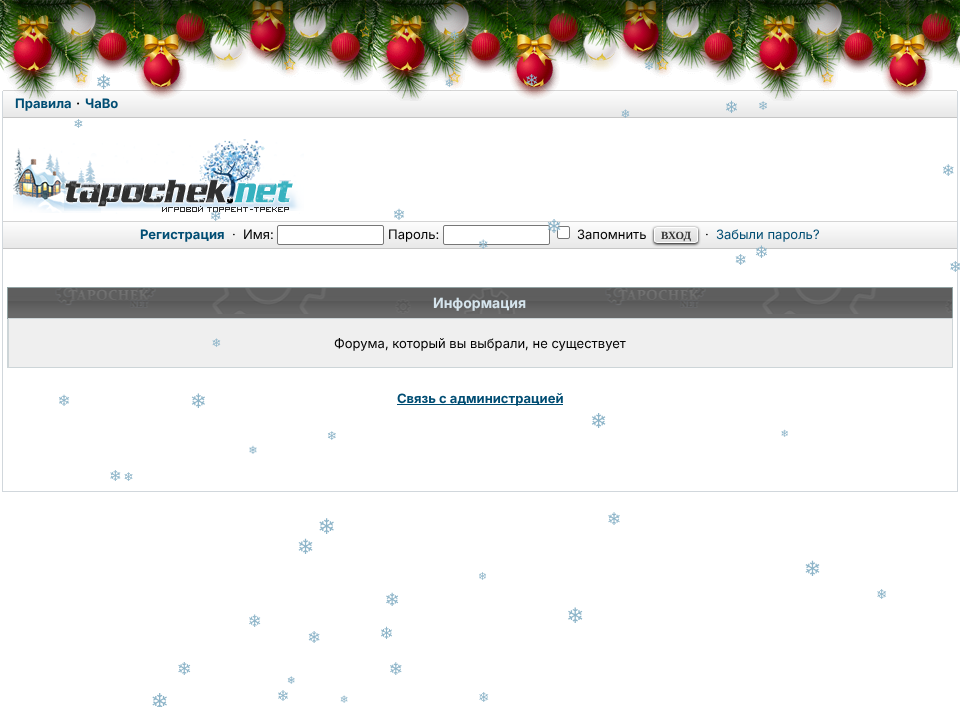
<!DOCTYPE html>
<meta charset="utf-8">
<style>body { margin: 0 } canvas { display: block }</style>
<canvas id="canvas" width="960" height="707"></canvas>
<script type="module">
  const canvas = document.getElementById("canvas");
  const g = canvas.getContext("2d");
  g.miterLimit = 4;
  g.fontKerning = "normal";
  function drawText(s, x, y, [font, color]) {
    g.font = font;
    g.fillStyle = color;
    g.fillText(s, x, y);
  }
  function fillBox(x, y, w, h, color) {
    g.fillStyle = color;
    g.fillRect(x, y, w, h);
  }
  async function drawPicture(src, x, y, w, h) {
    const img = new Image();
    img.src = src;
    await img.decode();
    g.drawImage(img, x, y, w, h);
  }
  let gradient;

  const s1 = ["bold 13px Inter", "#004D73"];
  const s2 = ["600 13px Inter", "#000000"];
  const s3 = ["13px Inter", "#000000"];
  const s4 = ["bold 11px Liberation Serif", "#333333"];
  const s5 = ["13px Inter", "#004D73"];
  const s6 = ["bold 14px Inter", "#D5E4EC"];

  fillBox(0, 0, 960, 707, "#FFFFFF");
  g.strokeStyle = "#D1D7DC";
  g.strokeRect(2.5, 91.5, 955, 400);
  await drawPicture("pic20.png", 3, 90, 954, 28);
  drawText("Правила", 15, 108, s1);
  drawText("ЧаВо", 85, 108, s1);
  await drawPicture("pic1.png", 0, 0, 960, 101);
  await drawPicture("pic3.png", 6, 0, 53, 82);
  await drawPicture("pic2.png", 0, 0, 25, 71);
  await drawPicture("pic5.png", 54, 0, 48, 47);
  await drawPicture("pic4.png", 25, 0, 61, 27);
  await drawPicture("pic6.png", 136, 0, 51, 100);
  await drawPicture("pic7.png", 170, 0, 41, 54);
  await drawPicture("pic13.png", 203, 6, 45, 66);
  await drawPicture("pic8.png", 177, 0, 28, 31);
  await drawPicture("pic10.png", 243, 0, 49, 64);
  await drawPicture("pic9.png", 205, 0, 50, 50);
  await drawPicture("pic11.png", 287, 0, 46, 49);
  await drawPicture("pic12.png", 91, 9, 42, 64);
  await drawPicture("pic16.png", 325, 10, 42, 63);
  await drawPicture("pic14.png", 289, 0, 78, 28);
  await drawPicture("pic15.png", 367, 0, 6, 69);
  await drawPicture("pic3.png", 379, 0, 53, 82);
  await drawPicture("pic2.png", 373, 0, 25, 71);
  await drawPicture("pic5.png", 427, 0, 48, 47);
  await drawPicture("pic4.png", 398, 0, 61, 27);
  await drawPicture("pic6.png", 509, 0, 51, 100);
  await drawPicture("pic7.png", 543, 0, 41, 54);
  await drawPicture("pic13.png", 576, 6, 45, 66);
  await drawPicture("pic8.png", 550, 0, 28, 31);
  await drawPicture("pic10.png", 616, 0, 49, 64);
  await drawPicture("pic9.png", 578, 0, 50, 50);
  await drawPicture("pic11.png", 660, 0, 46, 49);
  await drawPicture("pic12.png", 464, 9, 42, 64);
  await drawPicture("pic16.png", 698, 10, 42, 63);
  await drawPicture("pic14.png", 662, 0, 78, 28);
  await drawPicture("pic15.png", 740, 0, 6, 69);
  await drawPicture("pic3.png", 752, 0, 53, 82);
  await drawPicture("pic2.png", 746, 0, 25, 71);
  await drawPicture("pic5.png", 800, 0, 48, 47);
  await drawPicture("pic4.png", 771, 0, 61, 27);
  await drawPicture("pic6.png", 882, 0, 51, 100);
  await drawPicture("pic7.png", 916, 0, 41, 54);
  await drawPicture("pic12.png", 837, 9, 42, 64);
  await drawPicture("pic8.png", 923, 0, 28, 31);
  await drawPicture("pic18.png", 949, 31, 11, 36);
  await drawPicture("pic17.png", 951, 0, 9, 35);
  g.fillStyle = "rgba(0, 0, 0, 0.75)";
  g.filter = "blur(15px)";
  g.beginPath();
  g.rect(0, -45, 960, 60);
  g.fill();
  g.filter = "none";
  drawText("·", 76, 108, s2);
  await drawPicture("pic21.png", 12, 139, 292, 75);
  await drawPicture("pic20.png", 3, 221, 954, 28);
  drawText("Регистрация", 140, 239, s1);
  drawText("·", 232, 239, s3);
  drawText("Имя:", 243, 239, s3);
  g.fillStyle = "#FFFFFF";
  g.beginPath();
  g.roundRect(277.5, 225.5, 106, 19, 1.5);
  g.fill();
  g.strokeStyle = "#767676";
  g.stroke();
  drawText("Пароль:", 388, 239, s3);
  g.fillStyle = "#FFFFFF";
  g.beginPath();
  g.roundRect(443.5, 225.5, 106, 19, 1.5);
  g.fill();
  g.stroke();
  g.beginPath();
  g.roundRect(557.5, 226.5, 12, 12, 1.5);
  g.fill();
  g.stroke();
  drawText("Запомнить", 577, 239, s3);
  g.filter = "blur(1.5px)";
  g.beginPath();
  g.roundRect(654, 228, 44, 16, 3);
  g.fill();
  g.filter = "none";
  g.save();
  g.beginPath();
  g.roundRect(654, 227, 44, 16, 3);
  g.clip();
  gradient = g.createLinearGradient(676, 228, 676, 242);
  gradient.addColorStop(0, "#EEEEEE");
  gradient.addColorStop(1, "#DDDDDD");
  g.fillStyle = gradient;
  g.fillRect(654, 228, 44, 14);
  g.restore();
  g.beginPath();
  g.roundRect(654.5, 227.5, 43, 15, 2.5);
  g.strokeStyle = "#FFFFFF";
  g.stroke();
  drawText("ВХОД", 661, 239, s4);
  drawText("·", 705, 239, s3);
  drawText("Забыли пароль?", 716, 239, s5);
  fillBox(7, 319, 945, 49, "#CDD5D8");
  fillBox(8, 314, 944, 4, "#696969");
  await drawPicture("pic22.png", 8, 288, 944, 26);
  fillBox(7, 287, 946, 1, "#92A3A4");
  fillBox(952, 318, 1, 50, "#CDD5D8");
  fillBox(952, 287, 1, 32, "#92A3A4");
  fillBox(7, 318, 946, 1, "#CDD5D8");
  drawText("Информация", 433, 308, s6);
  fillBox(9, 319, 943, 48, "#EFEFEF");
  drawText("Форума, который вы выбрали, не существует", 334, 348, s3);
  fillBox(397, 404, 166, 1, "#004D73");
  drawText("Связь с администрацией", 397, 403, s1);
  await drawPicture("pic19.png", 59, 30, 901, 677);
  fillBox(7, 287, 1, 32, "#92A3A4");
</script>
